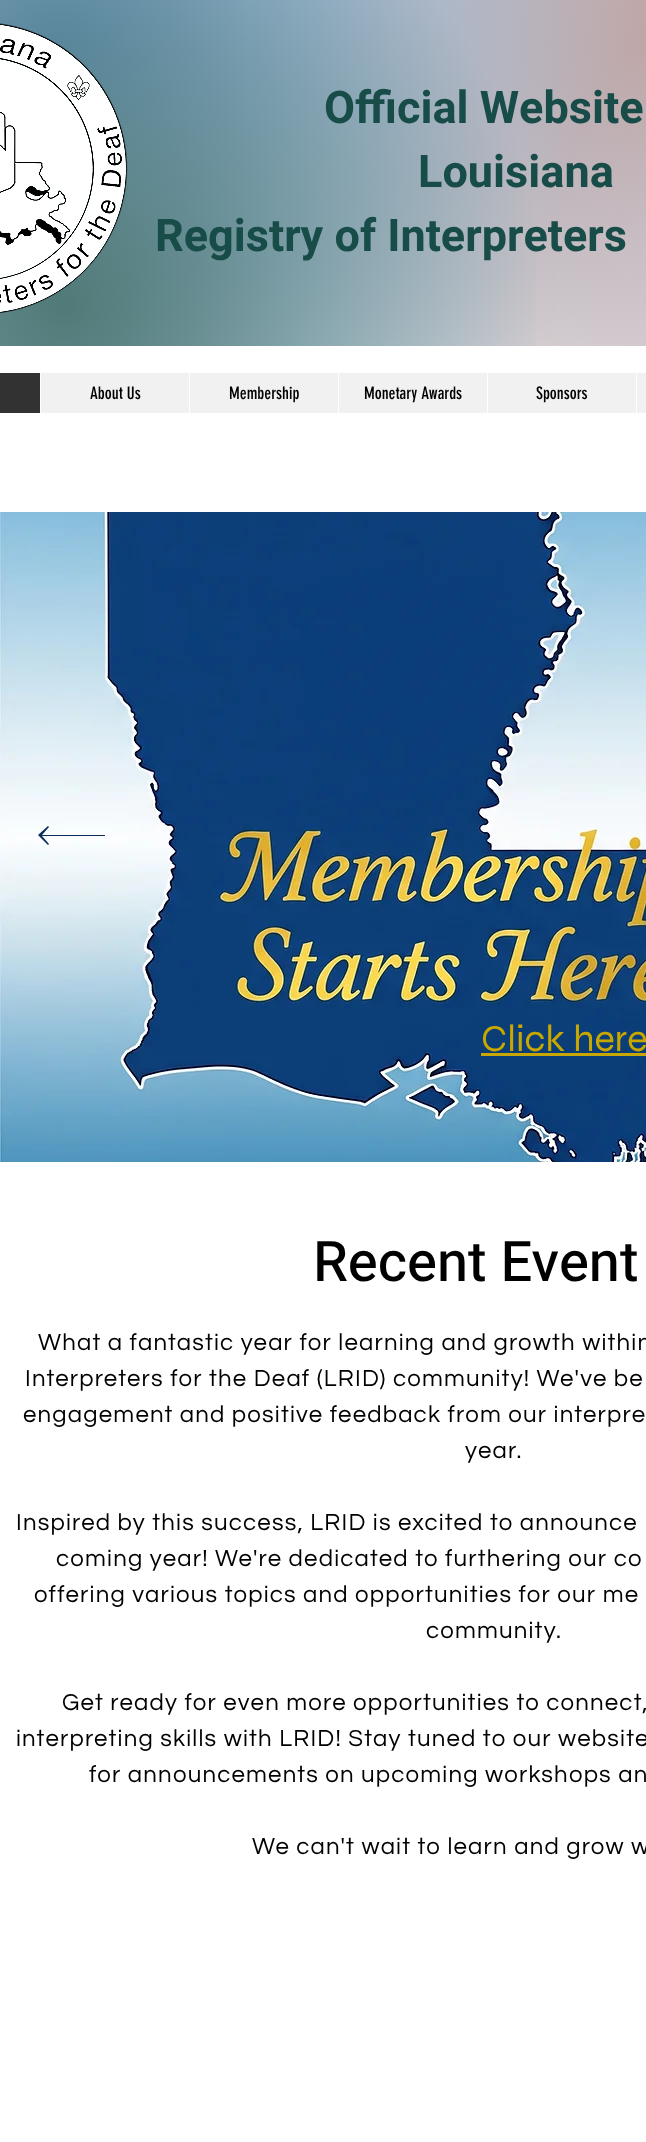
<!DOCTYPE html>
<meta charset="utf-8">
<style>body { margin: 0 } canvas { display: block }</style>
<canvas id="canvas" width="646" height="2142"></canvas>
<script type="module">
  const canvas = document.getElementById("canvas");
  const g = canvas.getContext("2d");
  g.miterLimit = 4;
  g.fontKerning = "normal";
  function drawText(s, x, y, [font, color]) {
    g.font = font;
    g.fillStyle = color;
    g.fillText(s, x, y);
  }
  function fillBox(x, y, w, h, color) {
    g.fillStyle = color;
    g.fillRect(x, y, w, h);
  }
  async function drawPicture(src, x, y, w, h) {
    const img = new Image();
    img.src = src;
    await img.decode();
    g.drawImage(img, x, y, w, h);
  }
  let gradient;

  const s1 = ["bold 45px Heebo", "#184C48"];
  const s2 = ["17px 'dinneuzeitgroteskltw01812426'", "#000000"];
  const s3 = ["38px Syne", "#C7A700"];
  const s4 = ["500 56px Heebo", "#000000"];
  const s5 = ["24px Questrial", "#000000"];

  fillBox(0, 0, 646, 2142, "#FFFFFF");
  gradient = g.createRadialGradient(918, 40, 0, 918, 40, 968);
  gradient.addColorStop(0, "#AE7065");
  gradient.addColorStop(0.7, "#FFFFFF");
  g.fillStyle = gradient;
  g.fillRect(252, 0, 394, 346);
  gradient = g.createRadialGradient(60, 44, 0, 60, 44, 968);
  gradient.addColorStop(0, "#6291B9");
  gradient.addColorStop(0.7, "rgba(98, 145, 185, 0)");
  g.fillStyle = gradient;
  g.fillRect(0, 0, 646, 346);
  gradient = g.createRadialGradient(64, 305, 0, 64, 305, 966);
  gradient.addColorStop(0, "rgba(79, 121, 118, 0.99)");
  gradient.addColorStop(0.5, "rgba(79, 121, 118, 0)");
  g.fillStyle = gradient;
  g.fillRect(0, 0, 536, 346);
  gradient = g.createRadialGradient(925, 310, 0, 925, 310, 975);
  gradient.addColorStop(0, "#BAD7F0");
  gradient.addColorStop(0.4, "rgba(186, 215, 240, 0)");
  g.fillStyle = gradient;
  g.fillRect(554, 56, 92, 290);
  await drawPicture("pic1.png", 0, 23, 128, 290);
  drawText("Official Website", 324, 123, s1);
  drawText("Louisiana", 418, 187, s1);
  drawText("Registry of Interpreters", 155, 251, s1);
  fillBox(41, 373, 605, 40, "#F1F1F1");
  fillBox(0, 373, 40, 40, "#323232");
  drawText("About Us", 90, 399, s2);
  fillBox(189, 373, 1, 40, "#FFFFFF");
  drawText("Membership", 229, 399, s2);
  fillBox(338, 373, 1, 40, "#FFFFFF");
  drawText("Monetary Awards", 364, 399, s2);
  fillBox(487, 373, 1, 40, "#FFFFFF");
  drawText("Sponsors", 536, 399, s2);
  fillBox(636, 373, 1, 40, "#FFFFFF");
  await drawPicture("pic2.png", 0, 512, 646, 650);
  g.fillStyle = "#0A2E5A";
  g.beginPath();
  g.moveTo(48, 826);
  g.lineTo(49, 827);
  g.lineTo(42, 835);
  g.lineTo(105, 835);
  g.lineTo(105, 836);
  g.lineTo(42, 836);
  g.lineTo(49, 844);
  g.lineTo(48, 845);
  g.lineTo(38, 835);
  g.closePath();
  g.fill();
  drawText("Click here", 481, 1051, s3);
  fillBox(481, 1053, 165, 3, "#C7A700");
  drawText("Recent Event", 313, 1281, s4);
  g.letterSpacing = "1.2px";
  drawText("What a fantastic year for learning and growth within", 38, 1350, s5);
  drawText("Interpreters for the Deaf (LRID) community! We've be", 25, 1386, s5);
  drawText("engagement and positive feedback from our interpre", 23, 1422, s5);
  drawText("year.", 465, 1458, s5);
  drawText("Inspired by this success, LRID is excited to announce", 16, 1530, s5);
  drawText("coming year! We're dedicated to furthering our co", 56, 1566, s5);
  drawText("offering various topics and opportunities for our me", 34, 1602, s5);
  drawText("community.", 426, 1638, s5);
  drawText("Get ready for even more opportunities to connect,", 62, 1710, s5);
  drawText("interpreting skills with LRID! Stay tuned to our website", 16, 1746, s5);
  drawText("for announcements on upcoming workshops an", 89, 1782, s5);
  drawText("We can't wait to learn and grow w", 252, 1854, s5);
</script>
